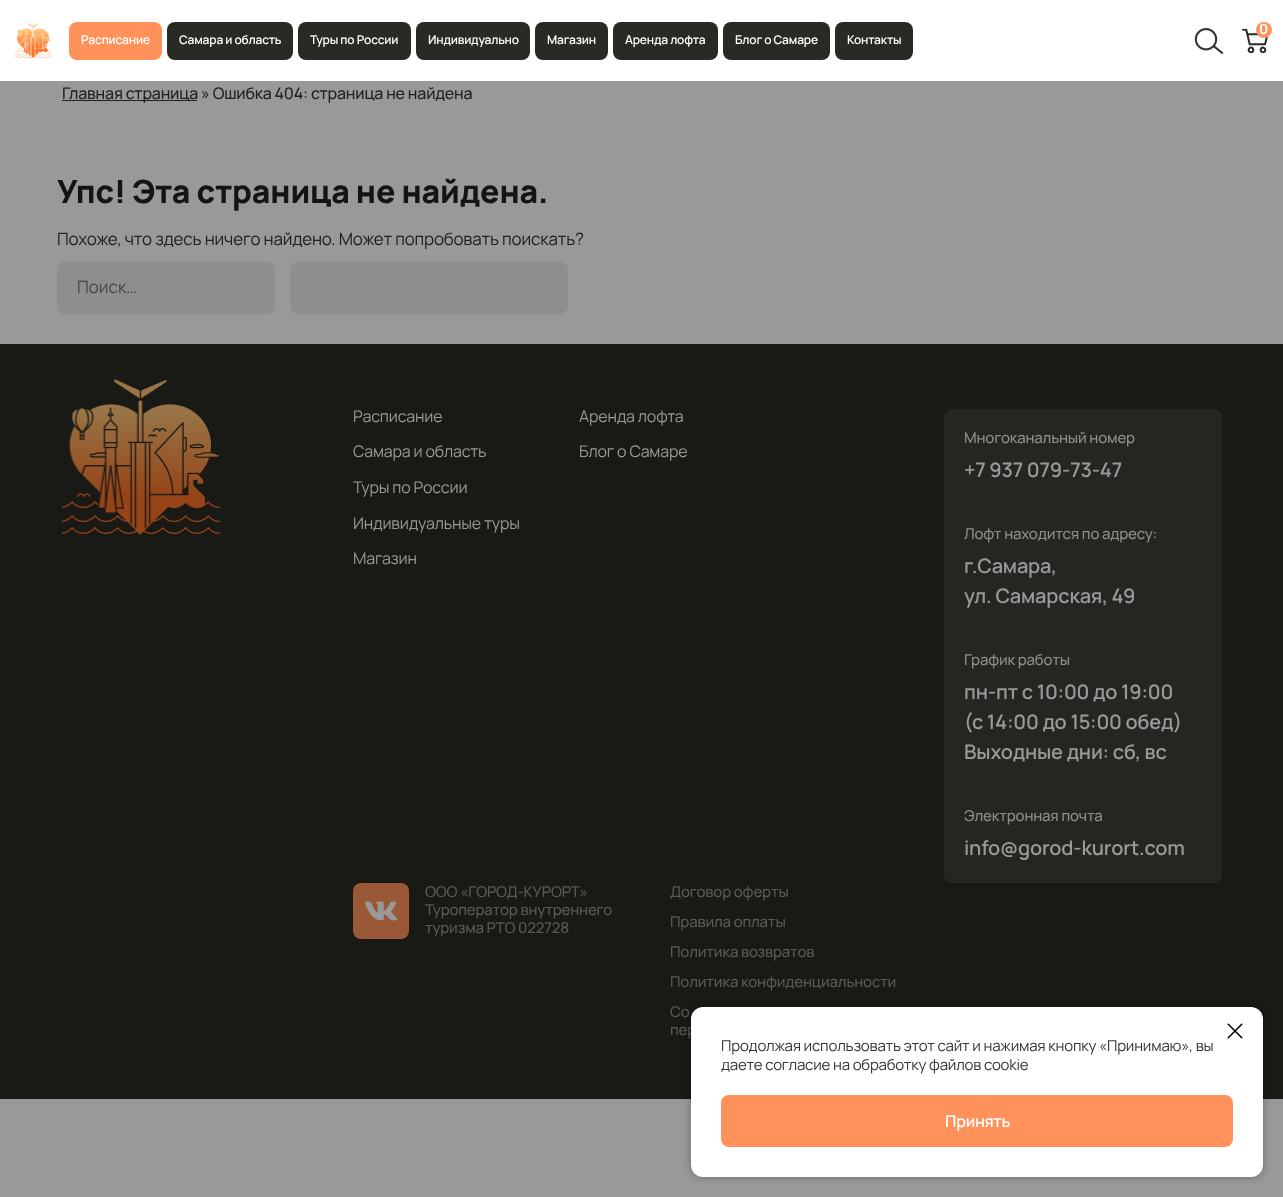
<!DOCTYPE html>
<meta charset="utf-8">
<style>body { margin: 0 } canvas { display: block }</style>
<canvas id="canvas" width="1283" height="1197"></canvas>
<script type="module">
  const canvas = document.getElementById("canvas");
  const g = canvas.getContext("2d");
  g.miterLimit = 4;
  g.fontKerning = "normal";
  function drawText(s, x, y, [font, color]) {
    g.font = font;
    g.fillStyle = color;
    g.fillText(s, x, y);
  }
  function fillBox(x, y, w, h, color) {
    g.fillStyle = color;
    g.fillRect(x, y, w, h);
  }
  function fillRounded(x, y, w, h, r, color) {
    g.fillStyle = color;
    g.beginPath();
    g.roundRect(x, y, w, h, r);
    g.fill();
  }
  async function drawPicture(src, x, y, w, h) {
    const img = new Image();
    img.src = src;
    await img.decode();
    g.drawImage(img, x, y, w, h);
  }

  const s1 = ["600 12px Manrope", "#FFFFFF"];
  const s2 = ["bold 14px Manrope", "#FFFFFF"];
  const s3 = ["500 16px Manrope", "#202020"];
  const s4 = ["800 32px Manrope", "#141414"];
  const s5 = ["17px Manrope", "#202020"];
  const s6 = ["17px Manrope", "#464646"];
  const s7 = ["16px Manrope", "#999999"];
  const s8 = ["500 15px Manrope", "#8F8E8D"];
  const s9 = ["600 20px Manrope", "#999999"];
  const s10 = ["500 15px Manrope", "#595957"];
  const s11 = ["15px Manrope", "#353535"];
  const s12 = ["600 16px Manrope", "#FFFFFF"];

  fillBox(0, 0, 1283, 1197, "#999999");
  fillBox(0, 0, 1283, 81, "#FFFFFF");
  await drawPicture("pic1.png", 15, 23, 36, 35);
  fillRounded(69, 22, 93, 38, 8, "#FF925A");
  g.letterSpacing = "-0.18px";
  drawText("Расписание", 81, 44, s1);
  fillRounded(167, 22, 126, 38, 8, "#292A23");
  drawText("Самара и область", 179, 44, s1);
  fillRounded(298, 22, 113, 38, 8, "#292A23");
  drawText("Туры по России", 310, 44, s1);
  fillRounded(416, 22, 114, 38, 8, "#292A23");
  drawText("Индивидуально", 428, 44, s1);
  fillRounded(535, 22, 73, 38, 8, "#292A23");
  drawText("Магазин", 547, 44, s1);
  fillRounded(613, 22, 105, 38, 8, "#292A23");
  drawText("Аренда лофта", 625, 44, s1);
  fillRounded(723, 22, 107, 38, 8, "#292A23");
  drawText("Блог о Самаре", 735, 44, s1);
  fillRounded(835, 22, 78, 38, 8, "#292A23");
  drawText("Контакты", 847, 44, s1);
  await drawPicture("pic2.png", 1194, 28, 30, 26);
  await drawPicture("pic3.png", 1242, 28, 26, 26);
  g.fillStyle = "#FF925A";
  g.beginPath();
  g.arc(1264, 30, 8, 0, Math.PI * 2);
  g.fill();
  drawText("0", 1259, 34, s2);
  fillBox(62, 100, 135, 1, "#202020");
  drawText("Главная страница » Ошибка 404: страница не найдена", 62, 99, s3);
  drawText("Упс! Эта страница не найдена.", 57, 203, s4);
  drawText("Похоже, что здесь ничего найдено. Может попробовать поискать?", 57, 245, s5);
  fillRounded(57, 262, 218, 52, 8, "#8F8E8D");
  g.letterSpacing = "0px";
  drawText("Поиск…", 77, 293, s6);
  fillRounded(290, 262, 278, 52, 8, "#8F8E8D");
  fillBox(0, 344, 1283, 755, "#191915");
  await drawPicture("pic4.png", 62, 379, 158, 156);
  g.letterSpacing = "-0.18px";
  drawText("Расписание", 353, 422, s7);
  drawText("Аренда лофта", 579, 422, s7);
  drawText("Самара и область", 353, 457, s7);
  drawText("Блог о Самаре", 579, 457, s7);
  drawText("Туры по России", 353, 493, s7);
  drawText("Индивидуальные туры", 353, 529, s7);
  drawText("Магазин", 353, 564, s7);
  fillRounded(944, 409, 278, 474, 8, "#252522");
  drawText("Многоканальный номер", 964, 443, s8);
  g.letterSpacing = "-0.2px";
  drawText("+7 937 079-73-47", 964, 477, s9);
  g.letterSpacing = "-0.18px";
  drawText("Лофт находится по адресу:", 964, 539, s8);
  g.letterSpacing = "-0.2px";
  drawText("г.Самара,", 964, 573, s9);
  drawText("ул. Самарская, 49", 964, 603, s9);
  g.letterSpacing = "-0.18px";
  drawText("График работы", 964, 665, s8);
  g.letterSpacing = "-0.2px";
  drawText("пн-пт с 10:00 до 19:00", 964, 699, s9);
  drawText("(с 14:00 до 15:00 обед)", 964, 729, s9);
  drawText("Выходные дни: сб, вс", 964, 759, s9);
  g.letterSpacing = "-0.18px";
  drawText("Электронная почта", 964, 821, s8);
  g.letterSpacing = "-0.2px";
  drawText("info@gorod-kurort.com", 964, 855, s9);
  fillRounded(353, 883, 56, 56, 8, "#995836");
  await drawPicture("pic5.png", 365, 901, 32, 20);
  g.letterSpacing = "-0.18px";
  drawText("ООО «ГОРОД-КУРОРТ»", 425, 897, s10);
  drawText("Туроператор внутреннего", 425, 915, s10);
  drawText("туризма РТО 022728", 425, 933, s10);
  drawText("Договор оферты", 670, 897, s10);
  drawText("Правила оплаты", 670, 927, s10);
  drawText("Политика возвратов", 670, 957, s10);
  drawText("Политика конфиденциальности", 670, 987, s10);
  drawText("Со", 670, 1017, s10);
  drawText("пер", 670, 1035, s10);
  g.fillStyle = "rgba(0, 0, 0, 0.3)";
  g.filter = "blur(4px)";
  g.beginPath();
  g.roundRect(691, 1007, 572, 170, 12);
  g.fill();
  g.filter = "none";
  fillRounded(691, 1007, 572, 170, 12, "#FFFFFF");
  await drawPicture("pic6.png", 1227, 1023, 16, 16);
  drawText("Продолжая использовать этот сайт и нажимая кнопку «Принимаю», вы", 721, 1051, s11);
  drawText("даете согласие на обработку файлов cookie", 721, 1070, s11);
  fillRounded(721, 1095, 512, 52, 8, "#FF925A");
  g.letterSpacing = "-0.25px";
  drawText("Принять", 945, 1127, s12);
</script>
